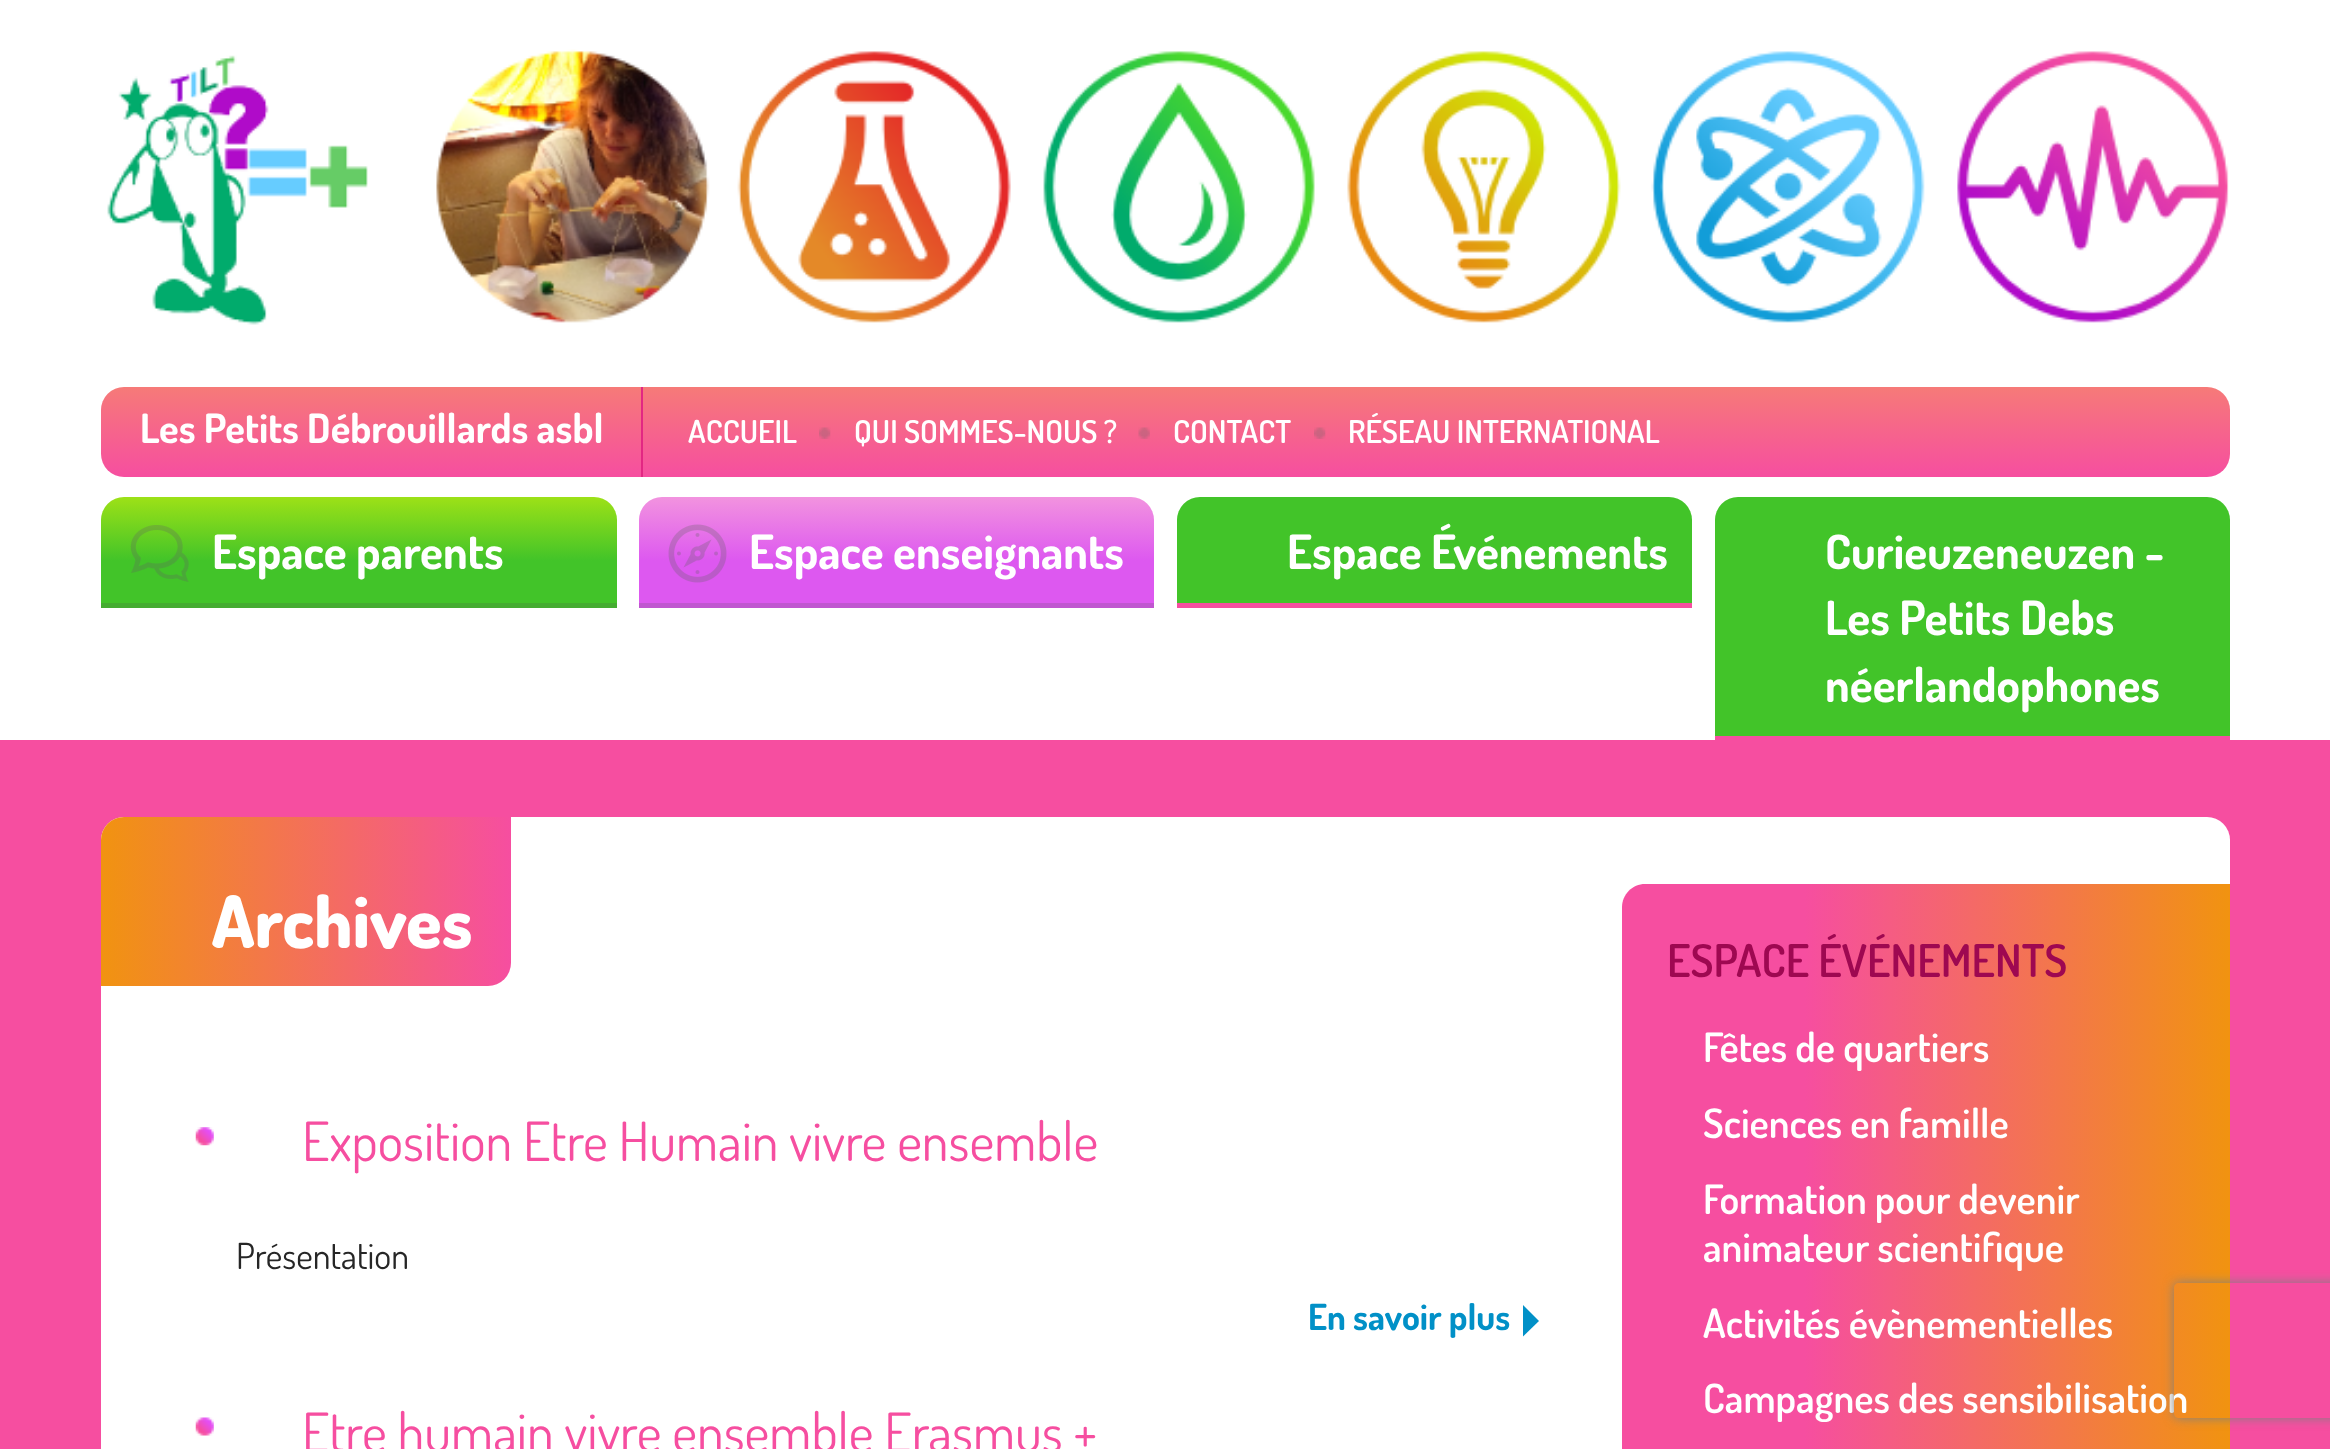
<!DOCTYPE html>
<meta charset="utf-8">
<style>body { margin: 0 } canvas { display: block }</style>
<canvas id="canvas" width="2330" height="1449"></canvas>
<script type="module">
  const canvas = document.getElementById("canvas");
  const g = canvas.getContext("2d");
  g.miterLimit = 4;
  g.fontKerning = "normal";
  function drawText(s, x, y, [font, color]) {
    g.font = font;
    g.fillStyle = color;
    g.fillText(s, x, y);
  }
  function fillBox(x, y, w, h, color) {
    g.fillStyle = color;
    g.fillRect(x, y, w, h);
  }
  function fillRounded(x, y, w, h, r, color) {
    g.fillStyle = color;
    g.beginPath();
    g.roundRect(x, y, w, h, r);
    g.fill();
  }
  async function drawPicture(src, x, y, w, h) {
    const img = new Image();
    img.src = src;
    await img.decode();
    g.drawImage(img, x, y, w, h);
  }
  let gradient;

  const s1 = ["bold 40.5px Dosis", "#FFFFFF"];
  const s2 = ["600 31.5px Dosis", "#FFFFFF"];
  const s3 = ["bold 47.25px Dosis", "#FFFFFF"];
  const s4 = ["800 72px Dosis", "#FFFFFF"];
  const s5 = ["54px Dosis", "#F64EA0"];
  const s6 = ["36px Dosis", "#262626"];
  const s7 = ["bold 36px Dosis", "#0190C7"];
  const s8 = ["600 45px Dosis", "#9E0851"];
  const s9 = ["600 40.5px Dosis", "#FFFFFF"];

  fillBox(0, 0, 2330, 1449, "#FFFFFF");
  await drawPicture("pic1.png", 436, 49, 1793, 274);
  await drawPicture("pic2.png", 107, 55, 261, 270);
  gradient = g.createLinearGradient(1166, 477, 1166, 387);
  gradient.addColorStop(0, "#F64EA0");
  gradient.addColorStop(1, "#F67A78");
  g.fillStyle = gradient;
  g.beginPath();
  g.roundRect(101, 387, 2129, 90, 23);
  g.fill();
  fillBox(641, 387, 2, 90, "#E22783");
  drawText("Les Petits Débrouillards asbl", 140, 443, s1);
  await drawPicture("pic3.png", 819, 427, 12, 12);
  drawText("ACCUEIL", 688, 443, s2);
  await drawPicture("pic4.png", 1138, 427, 12, 12);
  drawText("QUI SOMMES-NOUS ?", 854, 443, s2);
  await drawPicture("pic5.png", 1314, 427, 12, 12);
  drawText("CONTACT", 1173, 443, s2);
  drawText("RÉSEAU INTERNATIONAL", 1348, 443, s2);
  gradient = g.createLinearGradient(359, 603, 359, 497);
  gradient.addColorStop(0.4, "#42C429");
  gradient.addColorStop(1, "#9DE117");
  g.fillStyle = gradient;
  g.beginPath();
  g.roundRect(101, 497, 516, 106, [23, 23, 0, 0]);
  g.fill();
  fillBox(101, 603, 516, 5, "#44AC30");
  await drawPicture("pic6.png", 130, 525, 59, 57);
  drawText("Espace parents", 212, 569, s3);
  gradient = g.createLinearGradient(897, 603, 897, 497);
  gradient.addColorStop(0.4, "#DD58F0");
  gradient.addColorStop(1, "#F293DF");
  g.fillStyle = gradient;
  g.beginPath();
  g.roundRect(639, 497, 515, 106, [23, 23, 0, 0]);
  g.fill();
  fillBox(639, 603, 515, 5, "#C056D0");
  await drawPicture("pic7.png", 668, 524, 59, 59);
  drawText("Espace enseignants", 749, 569, s3);
  g.fillStyle = "#42C429";
  g.beginPath();
  g.roundRect(1177, 497, 515, 111, [23, 23, 0, 0]);
  g.fill();
  fillBox(1177, 603, 515, 5, "#F64EA0");
  drawText("Espace Événements", 1287, 569, s3);
  g.fillStyle = "#42C429";
  g.beginPath();
  g.roundRect(1715, 497, 515, 243, [23, 23, 0, 0]);
  g.fill();
  fillBox(1715, 736, 515, 4, "#F64EA0");
  drawText("Curieuzeneuzen -", 1825, 569, s3);
  drawText("Les Petits Debs", 1825, 635, s3);
  drawText("néerlandophones", 1825, 702, s3);
  fillBox(0, 740, 2330, 709, "#F64EA0");
  fillRounded(101, 817, 2129, 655, 23, "#FFFFFF");
  gradient = g.createLinearGradient(101, 901, 511, 901);
  gradient.addColorStop(0, "#F19310");
  gradient.addColorStop(1, "#F64EA0");
  g.fillStyle = gradient;
  g.beginPath();
  g.roundRect(101, 817, 410, 169, [23, 0, 23, 0]);
  g.fill();
  drawText("Archives", 212, 948, s4);
  await drawPicture("pic8.png", 195, 1127, 19, 19);
  drawText("Exposition Etre Humain vivre ensemble", 302, 1161, s5);
  drawText("Présentation", 236, 1269, s6);
  drawText("En savoir plus", 1308, 1330, s7);
  g.beginPath();
  g.moveTo(1523, 1336.5);
  g.lineTo(1523, 1305);
  g.lineTo(1539, 1321);
  g.closePath();
  g.fill();
  await drawPicture("pic9.png", 195, 1417, 19, 19);
  drawText("Etre humain vivre ensemble Erasmus +", 302, 1452, s5);
  gradient = g.createLinearGradient(1622, 1257, 2230, 1257);
  gradient.addColorStop(0.3, "#F64EA0");
  gradient.addColorStop(1, "#F19310");
  g.fillStyle = gradient;
  g.beginPath();
  g.moveTo(1645, 884);
  g.lineTo(2230, 884);
  g.lineTo(2230, 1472);
  g.lineTo(1645, 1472);
  g.bezierCurveTo(1632.5, 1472, 1622, 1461.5, 1622, 1449);
  g.lineTo(1622, 907);
  g.bezierCurveTo(1622, 894.5, 1632.5, 884, 1645, 884);
  g.closePath();
  g.fill();
  drawText("ESPACE ÉVÉNEMENTS", 1667, 977, s8);
  drawText("Fêtes de quartiers", 1703, 1062, s9);
  drawText("Sciences en famille", 1703, 1138, s9);
  drawText("Formation pour devenir", 1703, 1214, s9);
  drawText("animateur scientifique", 1703, 1262, s9);
  drawText("Activités évènementielles", 1703, 1338, s9);
  drawText("Campagnes des sensibilisation", 1703, 1413, s9);
  g.save();
  g.beginPath();
  g.moveTo(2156, 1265);
  g.lineTo(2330, 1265);
  g.lineTo(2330, 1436);
  g.lineTo(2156, 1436);
  g.closePath();
  g.moveTo(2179, 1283);
  g.lineTo(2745, 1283);
  g.bezierCurveTo(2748, 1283, 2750, 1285, 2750, 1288);
  g.lineTo(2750, 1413);
  g.bezierCurveTo(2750, 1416, 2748, 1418, 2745, 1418);
  g.lineTo(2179, 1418);
  g.bezierCurveTo(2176, 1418, 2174, 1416, 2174, 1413);
  g.lineTo(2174, 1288);
  g.bezierCurveTo(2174, 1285, 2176, 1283, 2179, 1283);
  g.closePath();
  g.clip("evenodd");
  g.fillStyle = "#808080";
  g.filter = "blur(5.5px)";
  g.beginPath();
  g.roundRect(2174, 1283, 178, 135, 5);
  g.fill();
  g.filter = "none";
  g.restore();
</script>
